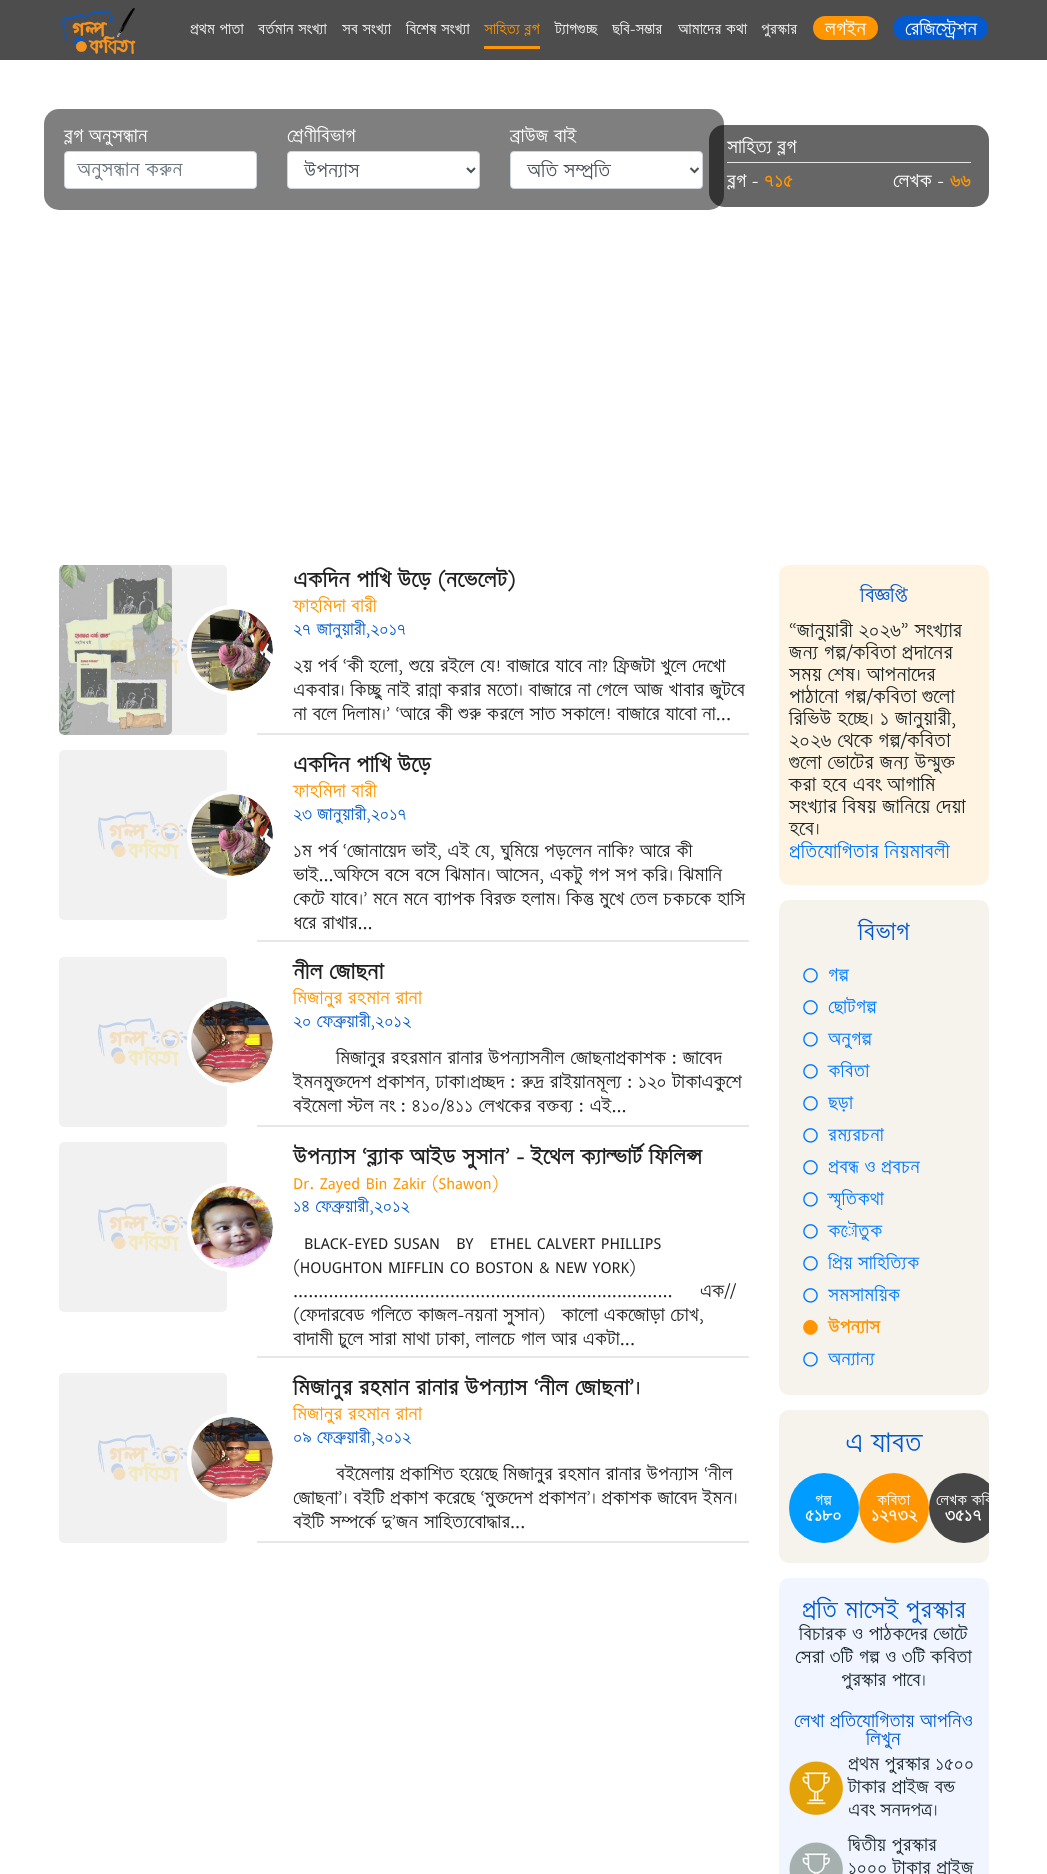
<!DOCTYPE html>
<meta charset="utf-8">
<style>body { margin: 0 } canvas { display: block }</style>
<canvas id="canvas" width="1047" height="1874"></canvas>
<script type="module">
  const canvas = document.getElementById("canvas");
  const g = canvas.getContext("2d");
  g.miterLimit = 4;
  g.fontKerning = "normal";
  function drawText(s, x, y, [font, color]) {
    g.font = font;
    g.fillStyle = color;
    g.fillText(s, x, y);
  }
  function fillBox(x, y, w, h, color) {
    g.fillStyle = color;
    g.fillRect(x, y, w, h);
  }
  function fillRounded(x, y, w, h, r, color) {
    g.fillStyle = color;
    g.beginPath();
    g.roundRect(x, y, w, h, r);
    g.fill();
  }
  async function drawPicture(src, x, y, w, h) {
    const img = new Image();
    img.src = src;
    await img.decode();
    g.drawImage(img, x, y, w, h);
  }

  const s1 = ["12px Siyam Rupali", "#F5F5F5"];
  const s2 = ["12px Siyam Rupali", "#FF9500"];
  const s3 = ["15px Siyam Rupali", "#FFFFFF"];
  const s4 = ["16px Siyam Rupali", "#6C757D"];
  const s5 = ["16px Siyam Rupali", "#495057"];
  const s6 = ["bold 15px Siyam Rupali", "#FF9500"];
  const s7 = ["bold 18px Siyam Rupali", "#212121"];
  const s8 = ["15px Siyam Rupali", "#FF9500"];
  const s9 = ["14px Siyam Rupali", "#035ACF"];
  const s10 = ["15px Siyam Rupali", "#212121"];
  const s11 = ["17px Siyam Rupali", "#035ACF"];
  const s12 = ["16px Siyam Rupali", "#192529"];
  const s13 = ["16px Siyam Rupali", "#007BFF"];
  const s14 = ["20px Siyam Rupali", "#035ACF"];
  const s15 = ["15px Siyam Rupali", "#007BFF"];
  const s16 = ["22.5px Siyam Rupali", "#035ACF"];
  const s17 = ["12px Siyam Rupali", "#FFFFFF"];
  const s18 = ["bold 14px Siyam Rupali", "#FFFFFF"];
  const s19 = ["15px Siyam Rupali", "#192529"];
  const s20 = ["15px Siyam Rupali", "#035ACF"];

  fillBox(0, 0, 1047, 1874, "#FFFFFF");
  fillBox(0, 0, 1047, 60, "#4D4D4D");
  await drawPicture("pic1.png", 62, 8, 74, 46);
  drawText("প্রথম পাতা", 190, 34, s1);
  drawText("বর্তমান সংখ্যা", 258, 34, s1);
  drawText("সব সংখ্যা", 342, 34, s1);
  drawText("বিশেষ সংখ্যা", 406, 34, s1);
  fillBox(484, 46, 56, 3, "#FF9500");
  drawText("সাহিত্য ব্লগ", 484, 34, s2);
  drawText("ট্যাগগুচ্ছ", 555, 34, s1);
  drawText("ছবি-সম্ভার", 612, 34, s1);
  drawText("আমাদের কথা", 678, 34, s1);
  drawText("পুরস্কার", 761, 34, s1);
  fillRounded(813, 16, 65, 24, 12, "#FF9500");
  drawText("লগইন", 825, 35, s3);
  fillRounded(893, 16, 95, 24, 12, "#035ACF");
  drawText("রেজিস্ট্রেশন", 905, 35, s3);
  fillRounded(709, 125, 280, 82, 15, "#666666");
  fillRounded(44, 109, 680, 101, 15, "rgba(0, 0, 0, 0.5)");
  drawText("ব্লগ অনুসন্ধান", 64, 142, s3);
  g.beginPath();
  g.roundRect(64.5, 151.5, 192, 37, 3.5);
  g.fill();
  g.strokeStyle = "#CED4DA";
  g.stroke();
  drawText("অনুসন্ধান করুন", 77, 176, s4);
  drawText("শ্রেণীবিভাগ", 287, 142, s3);
  g.beginPath();
  g.roundRect(287.5, 151.5, 192, 37, 3.5);
  g.fill();
  g.stroke();
  g.beginPath();
  g.moveTo(467, 168);
  g.lineTo(471, 172);
  g.lineTo(475, 168);
  g.strokeStyle = "#495057";
  g.lineWidth = 2;
  g.stroke();
  drawText("উপন্যাস", 304, 177, s5);
  drawText("ব্রাউজ বাই", 510, 142, s3);
  g.beginPath();
  g.roundRect(510.5, 151.5, 192, 37, 3.5);
  g.fill();
  g.strokeStyle = "#CED4DA";
  g.lineWidth = 1;
  g.stroke();
  g.beginPath();
  g.moveTo(690.5, 168);
  g.lineTo(694.5, 172);
  g.lineTo(698.5, 168);
  g.strokeStyle = "#495057";
  g.lineWidth = 2;
  g.stroke();
  drawText("অতি সম্প্রতি", 527, 177, s5);
  fillBox(727, 162, 244, 1, "#E7E7E7");
  drawText("সাহিত্য ব্লগ", 727, 153, s3);
  drawText("ব্লগ -", 727, 187, s3);
  drawText("৭১৫", 764, 187, s6);
  drawText("লেখক -", 893, 187, s3);
  drawText("৬৬", 950, 187, s6);
  fillRounded(59, 565, 168, 170, 5, "#F1F1F1");
  await drawPicture("pic2.png", 98, 626, 89, 48);
  await drawPicture("pic3.png", 59, 565, 113, 170);
  fillBox(257, 733, 492, 2, "#E7E7E7");
  g.beginPath();
  g.arc(232, 650, 43, 0, Math.PI * 2);
  g.strokeStyle = "#FFFFFF";
  g.lineWidth = 4;
  g.stroke();
  await drawPicture("pic4.png", 191, 609, 82, 82);
  drawText("একদিন পাখি উড়ে (নভেলেট)", 293, 587, s7);
  drawText("ফাহমিদা বারী", 293, 612, s8);
  drawText("২৭ জানুয়ারী,২০১৭", 293, 635, s9);
  drawText("২য় পর্ব ‘কী হলো, শুয়ে রইলে যে! বাজারে যাবে না? ফ্রিজটা খুলে দেখো", 293, 672, s10);
  drawText("একবার। কিচ্ছু নাই রান্না করার মতো। বাজারে না গেলে আজ খাবার জুটবে", 293, 696, s10);
  drawText("না বলে দিলাম।’ ‘আরে কী শুরু করলে সাত সকালে! বাজারে যাবো না...", 293, 720, s10);
  fillRounded(59, 750, 168, 170, 5, "#F1F1F1");
  await drawPicture("pic2.png", 98, 811, 89, 48);
  fillBox(257, 940, 492, 2, "#E7E7E7");
  g.beginPath();
  g.arc(232, 835, 43, 0, Math.PI * 2);
  g.stroke();
  await drawPicture("pic4.png", 191, 794, 82, 82);
  drawText("একদিন পাখি উড়ে", 293, 772, s7);
  drawText("ফাহমিদা বারী", 293, 797, s8);
  drawText("২৩ জানুয়ারী,২০১৭", 293, 820, s9);
  drawText("১ম পর্ব ‘জোনায়েদ ভাই, এই যে, ঘুমিয়ে পড়লেন নাকি? আরে কী", 293, 857, s10);
  drawText("ভাই...অফিসে বসে বসে ঝিমান। আসেন, একটু গপ সপ করি। ঝিমানি", 293, 881, s10);
  drawText("কেটে যাবে।’ মনে মনে ব্যাপক বিরক্ত হলাম। কিন্তু মুখে তেল চকচকে হাসি", 293, 905, s10);
  drawText("ধরে রাখার...", 293, 929, s10);
  fillRounded(59, 957, 168, 170, 5, "#F1F1F1");
  await drawPicture("pic2.png", 98, 1018, 89, 48);
  fillBox(257, 1125, 492, 2, "#E7E7E7");
  g.beginPath();
  g.arc(232, 1042, 43, 0, Math.PI * 2);
  g.stroke();
  await drawPicture("pic5.png", 191, 1001, 82, 82);
  drawText("নীল জোছনা", 293, 979, s7);
  drawText("মিজানুর রহমান রানা", 293, 1004, s8);
  drawText("২০ ফেব্রুয়ারী,২০১২", 293, 1027, s9);
  drawText("মিজানুর রহরমান রানার উপন্যাসনীল জোছনাপ্রকাশক : জাবেদ", 336, 1064, s10);
  drawText("ইমনমুক্তদেশ প্রকাশন, ঢাকা।প্রচ্ছদ : রুদ্র রাইয়ানমূল্য : ১২০ টাকাএকুশে", 293, 1088, s10);
  drawText("বইমেলা স্টল নং : ৪১০/৪১১ লেখকের বক্তব্য : এই...", 293, 1112, s10);
  fillRounded(59, 1142, 168, 170, 5, "#F1F1F1");
  await drawPicture("pic2.png", 98, 1203, 89, 48);
  fillBox(257, 1356, 492, 2, "#E7E7E7");
  g.beginPath();
  g.arc(232, 1227, 43, 0, Math.PI * 2);
  g.stroke();
  await drawPicture("pic6.png", 191, 1186, 82, 82);
  drawText("উপন্যাস ‘ব্ল্যাক আইড সুসান’ – ইথেল ক্যাল্ভার্ট ফিলিপ্স", 293, 1164, s7);
  drawText("Dr. Zayed Bin Zakir (Shawon)", 293, 1189, s8);
  drawText("১৪ ফেব্রুয়ারী,২০১২", 293, 1212, s9);
  drawText("BLACK-EYED SUSAN   BY   ETHEL CALVERT PHILLIPS", 304, 1249, s10);
  drawText("(HOUGHTON MIFFLIN CO BOSTON & NEW YORK)", 293, 1273, s10);
  drawText("...........................................................................     এক//", 293, 1297, s10);
  drawText("(ফেদারবেড গলিতে কাজল-নয়না সুসান)   কালো একজোড়া চোখ,", 293, 1321, s10);
  drawText("বাদামী চুলে সারা মাথা ঢাকা, লালচে গাল আর একটা...", 293, 1345, s10);
  fillRounded(59, 1373, 168, 170, 5, "#F1F1F1");
  await drawPicture("pic2.png", 98, 1434, 89, 48);
  fillBox(257, 1541, 492, 2, "#E7E7E7");
  g.beginPath();
  g.arc(232, 1458, 43, 0, Math.PI * 2);
  g.stroke();
  await drawPicture("pic7.png", 191, 1417, 82, 82);
  drawText("মিজানুর রহমান রানার উপন্যাস ‘নীল জোছনা’।", 293, 1395, s7);
  drawText("মিজানুর রহমান রানা", 293, 1420, s8);
  drawText("০৯ ফেব্রুয়ারী,২০১২", 293, 1443, s9);
  drawText("বইমেলায় প্রকাশিত হয়েছে মিজানুর রহমান রানার উপন্যাস ‘নীল", 336, 1480, s10);
  drawText("জোছনা’। বইটি প্রকাশ করেছে ‘মুক্তদেশ প্রকাশন’। প্রকাশক জাবেদ ইমন।", 293, 1504, s10);
  drawText("বইটি সম্পর্কে দু’জন সাহিত্যবোদ্ধার...", 293, 1528, s10);
  fillRounded(779, 565, 210, 320, 10, "#FFF4E2");
  drawText("বিজ্ঞপ্তি", 860, 602, s11);
  drawText("“জানুয়ারী ২০২৬” সংখ্যার", 789, 637, s12);
  drawText("জন্য গল্প/কবিতা প্রদানের", 789, 659, s12);
  drawText("সময় শেষ। আপনাদের", 789, 681, s12);
  drawText("পাঠানো গল্প/কবিতা গুলো", 789, 703, s12);
  drawText("রিভিউ হচ্ছে। ১ জানুয়ারী,", 789, 725, s12);
  drawText("২০২৬ থেকে গল্প/কবিতা", 789, 747, s12);
  drawText("গুলো ভোটের জন্য উন্মুক্ত", 789, 769, s12);
  drawText("করা হবে এবং আগামি", 789, 791, s12);
  drawText("সংখ্যার বিষয় জানিয়ে দেয়া", 789, 813, s12);
  drawText("হবে।", 789, 835, s12);
  drawText("প্রতিযোগিতার নিয়মাবলী", 789, 858, s13);
  fillRounded(779, 900, 210, 495, 10, "#F6F2EC");
  drawText("বিভাগ", 858, 940, s14);
  await drawPicture("pic8.png", 803, 968, 15, 15);
  drawText("গল্প", 828, 981, s15);
  await drawPicture("pic8.png", 803, 1000, 15, 15);
  drawText("ছোটগল্প", 828, 1013, s15);
  await drawPicture("pic8.png", 803, 1032, 15, 15);
  drawText("অনুগল্প", 828, 1045, s15);
  await drawPicture("pic8.png", 803, 1064, 15, 15);
  drawText("কবিতা", 828, 1077, s15);
  await drawPicture("pic8.png", 803, 1096, 15, 15);
  drawText("ছড়া", 828, 1109, s15);
  await drawPicture("pic8.png", 803, 1128, 15, 15);
  drawText("রম্যরচনা", 828, 1141, s15);
  await drawPicture("pic8.png", 803, 1160, 15, 15);
  drawText("প্রবন্ধ ও প্রবচন", 828, 1173, s15);
  await drawPicture("pic8.png", 803, 1192, 15, 15);
  drawText("স্মৃতিকথা", 828, 1205, s15);
  await drawPicture("pic8.png", 803, 1224, 15, 15);
  drawText("কৌতুক", 828, 1237, s15);
  await drawPicture("pic8.png", 803, 1256, 15, 15);
  drawText("প্রিয় সাহিত্যিক", 828, 1269, s15);
  await drawPicture("pic8.png", 803, 1288, 15, 15);
  drawText("সমসাময়িক", 828, 1301, s15);
  g.fillStyle = "#FF9500";
  g.beginPath();
  g.moveTo(805.5, 1322);
  g.bezierCurveTo(812, 1315.5, 822.5, 1326, 815.5, 1332.5);
  g.bezierCurveTo(809, 1339.5, 798.5, 1329, 805.5, 1322);
  g.closePath();
  g.fill();
  drawText("উপন্যাস", 828, 1333, s6);
  await drawPicture("pic8.png", 803, 1352, 15, 15);
  drawText("অন্যান্য", 828, 1365, s15);
  fillRounded(779, 1410, 210, 153, 10, "#F6F2EC");
  drawText("এ যাবত", 845, 1452, s16);
  g.fillStyle = "#009CFF";
  g.beginPath();
  g.arc(824, 1508, 35, 0, Math.PI * 2);
  g.fill();
  drawText("গল্প", 815, 1505, s17);
  drawText("৫১৮০", 805, 1521, s18);
  g.fillStyle = "#FF9500";
  g.beginPath();
  g.arc(894, 1508, 35, 0, Math.PI * 2);
  g.fill();
  drawText("কবিতা", 877, 1505, s17);
  drawText("১২৭৩২", 871, 1521, s18);
  g.save();
  g.beginPath();
  g.roundRect(779, 1410, 210, 153, 10);
  g.clip();
  g.fillStyle = "#464646";
  g.beginPath();
  g.arc(964, 1508, 35, 0, Math.PI * 2);
  g.fill();
  g.restore();
  drawText("লেখক কবি", 936, 1505, s17);
  drawText("৩৫১৭", 945, 1521, s18);
  fillRounded(779, 1578, 210, 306, 10, "#F0F5FF");
  drawText("প্রতি মাসেই পুরস্কার", 802, 1618, s14);
  drawText("বিচারক ও পাঠকদের ভোটে", 799, 1640, s19);
  drawText("সেরা ৩টি গল্প ও ৩টি কবিতা", 795, 1663, s19);
  drawText("পুরস্কার পাবে।", 841, 1686, s19);
  drawText("লেখা প্রতিযোগিতায় আপনিও", 794, 1727, s20);
  drawText("লিখুন", 866, 1745, s20);
  await drawPicture("pic9.png", 789, 1761, 54, 54);
  drawText("প্রথম পুরস্কার ১৫০০", 848, 1770, s19);
  drawText("টাকার প্রাইজ বন্ড", 848, 1793, s19);
  drawText("এবং সনদপত্র।", 848, 1816, s19);
  await drawPicture("pic10.png", 789, 1842, 54, 32);
  drawText("দ্বিতীয় পুরস্কার", 848, 1851, s19);
  drawText("১০০০ টাকার প্রাইজ", 848, 1874, s19);
</script>
